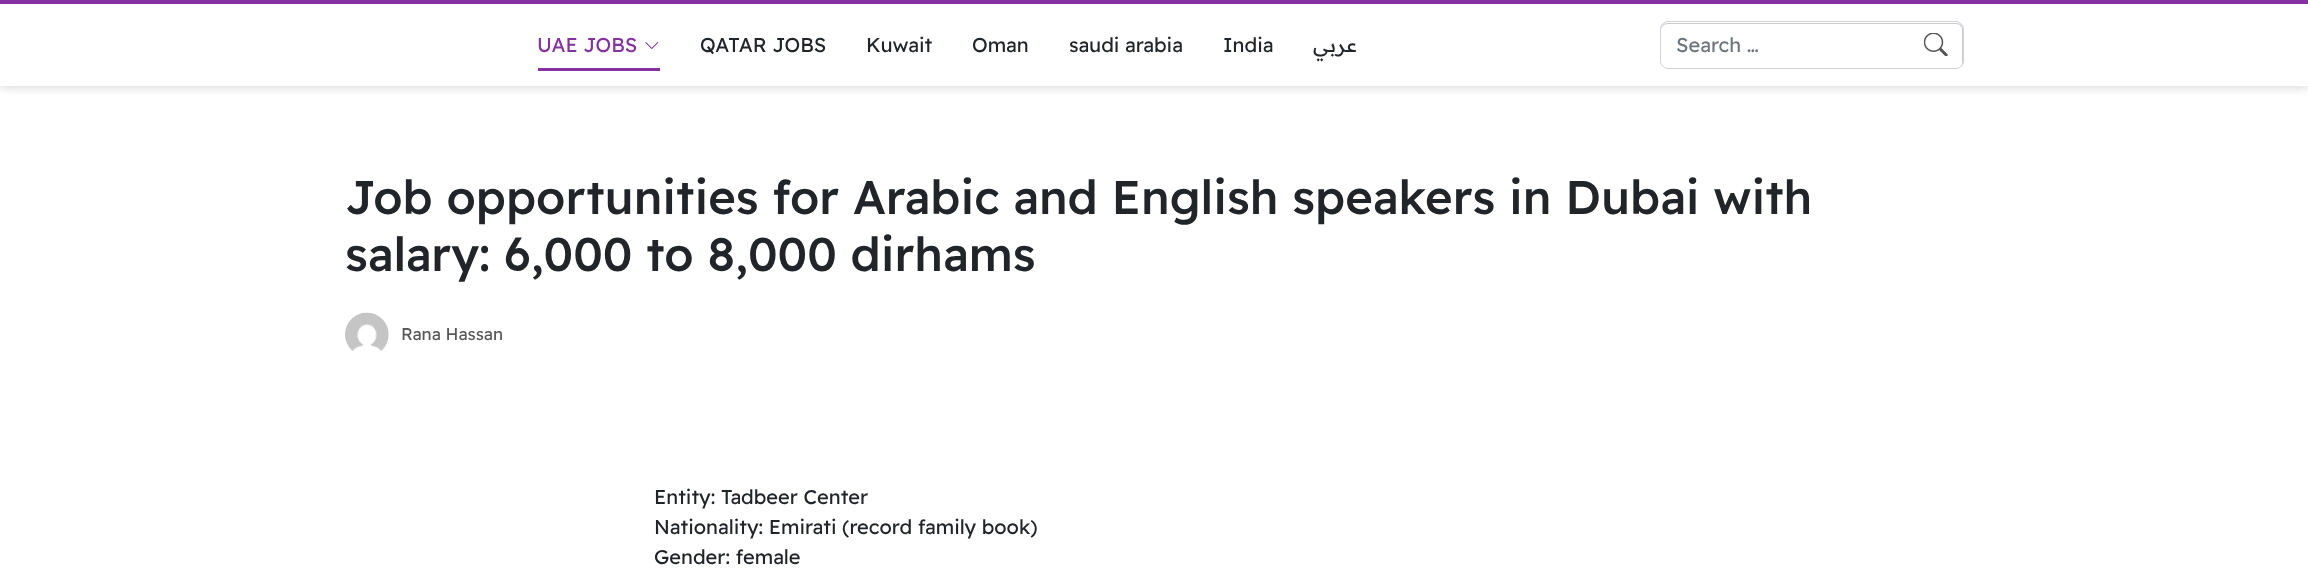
<!DOCTYPE html>
<meta charset="utf-8">
<style>body { margin: 0 } canvas { display: block }</style>
<canvas id="canvas" width="2308" height="574"></canvas>
<script type="module">
  const canvas = document.getElementById("canvas");
  const g = canvas.getContext("2d");
  g.miterLimit = 4;
  g.fontKerning = "normal";
  function drawText(s, x, y, [font, color]) {
    g.font = font;
    g.fillStyle = color;
    g.fillText(s, x, y);
  }
  function fillBox(x, y, w, h, color) {
    g.fillStyle = color;
    g.fillRect(x, y, w, h);
  }
  async function drawPicture(src, x, y, w, h) {
    const img = new Image();
    img.src = src;
    await img.decode();
    g.drawImage(img, x, y, w, h);
  }

  const s1 = ["20px Readex Pro", "#8531A2"];
  const s2 = ["20px Readex Pro", "#212529"];
  const s3 = ["20px Readex Pro", "#6C757D"];
  const s4 = ["500 47.1px Readex Pro", "#212529"];
  const s5 = ["17px Readex Pro", "#595959"];

  fillBox(0, 0, 2308, 574, "#FFFFFF");
  g.save();
  g.beginPath();
  g.rect(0, 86, 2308, 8);
  g.clip();
  g.fillStyle = "rgba(0, 0, 0, 0.2)";
  g.filter = "blur(6px)";
  g.beginPath();
  g.rect(0, 0, 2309, 86);
  g.fill();
  g.filter = "none";
  g.restore();
  fillBox(0, 0, 2308, 4, "#8531A2");
  drawText("UAE JOBS", 537, 52, s1);
  await drawPicture("pic1.png", 645, 42, 14, 7);
  fillBox(538, 68, 122, 3, "#8531A2");
  drawText("QATAR JOBS", 700, 52, s2);
  drawText("Kuwait", 866, 52, s2);
  drawText("Oman", 972, 52, s2);
  drawText("saudi arabia", 1069, 52, s2);
  drawText("India", 1223, 52, s2);
  g.direction = "rtl";
  drawText("عربي", 1357, 52, s2);
  await drawPicture("pic2.png", 1924, 33, 24, 23);
  g.fillStyle = "#CCCCCC";
  g.beginPath();
  g.moveTo(1668, 24);
  g.lineTo(1956, 24);
  g.bezierCurveTo(1960, 24, 1962, 27, 1962, 30);
  g.lineTo(1962, 62);
  g.bezierCurveTo(1962, 64, 1962, 65, 1961, 67);
  g.bezierCurveTo(1962, 66, 1963, 64, 1963, 62);
  g.lineTo(1963, 29);
  g.bezierCurveTo(1963, 26, 1960, 23, 1957, 23);
  g.lineTo(1667, 23);
  g.bezierCurveTo(1664, 23, 1661, 26, 1661, 29);
  g.lineTo(1661, 30);
  g.bezierCurveTo(1661, 27, 1664, 24, 1668, 24);
  g.closePath();
  g.fill();
  g.beginPath();
  g.roundRect(1660.5, 21.5, 303, 47, 7.5);
  g.strokeStyle = "#CED4DA";
  g.stroke();
  g.direction = "ltr";
  drawText("Search …", 1676, 52, s3);
  drawText("Job opportunities for Arabic and English speakers in Dubai with", 345, 214, s4);
  drawText("salary: 6,000 to 8,000 dirhams", 345, 271, s4);
  await drawPicture("pic3.png", 345, 312, 44, 39);
  drawText("Rana Hassan", 401, 340, s5);
  drawText("Entity: Tadbeer Center", 654, 504, s2);
  drawText("Nationality: Emirati (record family book)", 654, 534, s2);
  drawText("Gender: female", 654, 564, s2);
</script>
